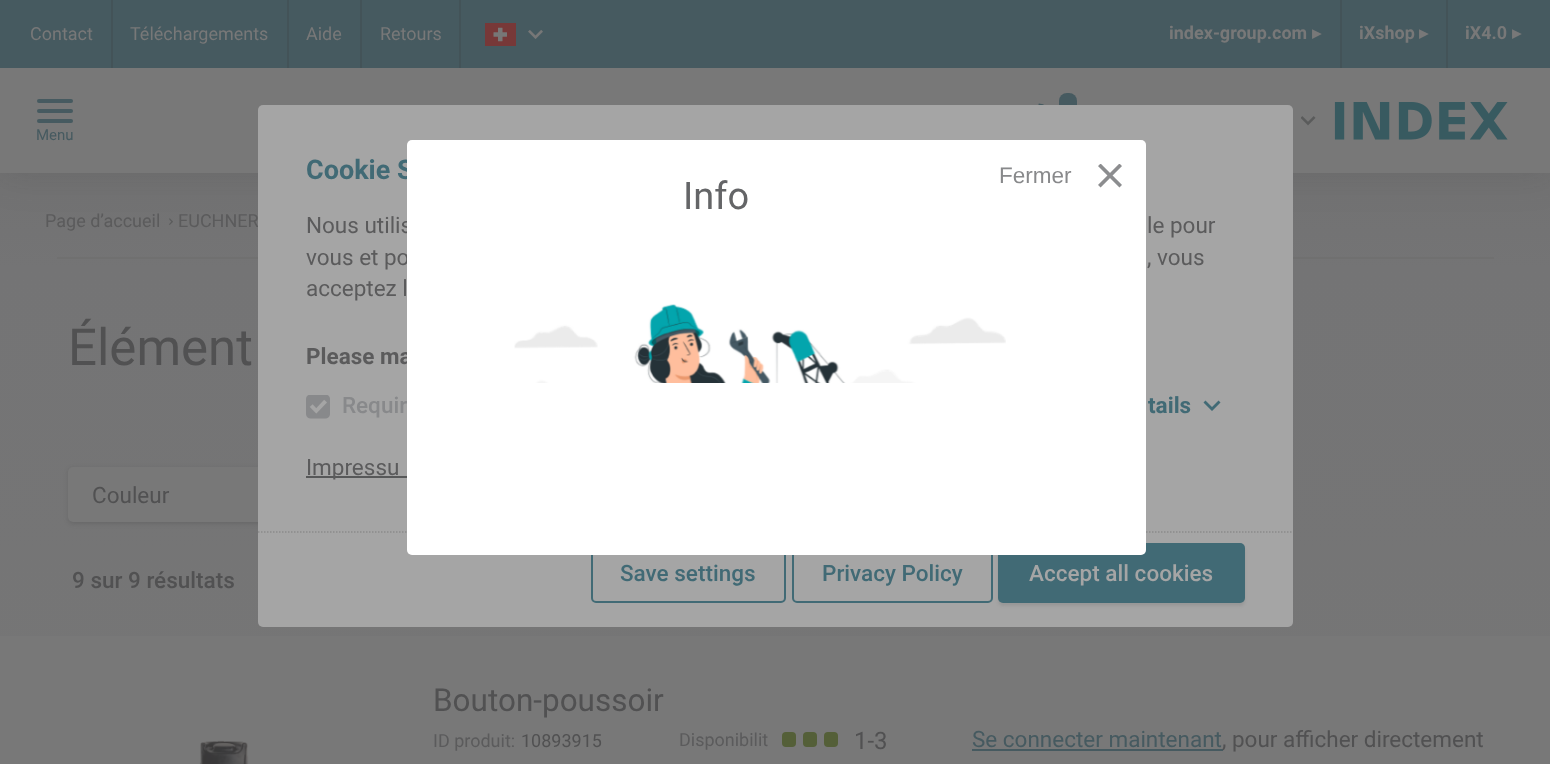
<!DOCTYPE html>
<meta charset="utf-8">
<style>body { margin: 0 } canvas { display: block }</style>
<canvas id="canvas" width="1550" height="764"></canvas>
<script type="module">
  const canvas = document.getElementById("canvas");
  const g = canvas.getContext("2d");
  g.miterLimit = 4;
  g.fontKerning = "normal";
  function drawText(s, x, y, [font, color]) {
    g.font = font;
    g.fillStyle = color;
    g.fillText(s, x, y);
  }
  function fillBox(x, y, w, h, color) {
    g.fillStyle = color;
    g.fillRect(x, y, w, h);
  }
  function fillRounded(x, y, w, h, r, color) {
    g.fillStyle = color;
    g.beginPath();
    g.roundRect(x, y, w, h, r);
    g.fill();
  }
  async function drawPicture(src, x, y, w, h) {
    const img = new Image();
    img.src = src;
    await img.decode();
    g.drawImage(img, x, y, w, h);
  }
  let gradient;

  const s1 = ["18px Roboto", "#787878"];
  const s2 = ["bold 18px Roboto", "#787878"];
  const s3 = ["bold 18px DejaVu Sans", "#787878"];
  const s4 = ["15px Roboto", "#465A60"];
  const s5 = ["18px Roboto", "#5B5B5C"];
  const s6 = ["51px Roboto", "#515152"];
  const s7 = ["22.5px Roboto", "#515152"];
  const s8 = ["500 22.5px Roboto", "#515152"];
  const s9 = ["31.5px Roboto", "#515152"];
  const s10 = ["18px Roboto", "#515152"];
  const s11 = ["24px Roboto", "#515152"];
  const s12 = ["22.5px Roboto", "#465A60"];
  const s13 = ["bold 27px Roboto", "#416A75"];
  const s14 = ["22.5px Roboto", "#5B5B5C"];
  const s15 = ["bold 22.5px Roboto", "#5B5B5C"];
  const s16 = ["500 22.5px Roboto", "#88898B"];
  const s17 = ["bold 22.5px Roboto", "#416A75"];
  const s18 = ["500 22.5px Roboto", "#416A75"];
  const s19 = ["500 22.5px Roboto", "#A5A5A5"];
  const s20 = ["22.5px Liberation Sans", "#88898B"];
  const s21 = ["38px Roboto", "#646567"];

  fillBox(0, 0, 1550, 764, "#FFFFFF");
  gradient = g.createLinearGradient(776, 0, 776, 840);
  gradient.addColorStop(0, "#6D6D6D");
  gradient.addColorStop(0.32, "#747475");
  gradient.addColorStop(1, "#767676");
  g.fillStyle = gradient;
  g.fillRect(0, 173, 1550, 463);
  await drawPicture("pic6.png", 169, 218, 4, 7);
  g.fillStyle = "rgba(56, 56, 56, 0.15)";
  g.filter = "blur(19px)";
  g.beginPath();
  g.rect(0, 0, 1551, 173);
  g.fill();
  g.filter = "none";
  fillBox(0, 68, 1550, 105, "#787878");
  fillBox(0, 0, 1550, 68, "#465A60");
  fillBox(111, 0, 2, 68, "#435358");
  drawText("Contact", 30, 40, s1);
  fillBox(287, 0, 2, 68, "#435358");
  drawText("Téléchargements", 130, 40, s1);
  fillBox(360, 0, 2, 68, "#435358");
  drawText("Aide", 306, 40, s1);
  fillBox(459, 0, 2, 68, "#435358");
  drawText("Retours", 380, 40, s1);
  await drawPicture("pic1.png", 485, 23, 31, 23);
  await drawPicture("pic2.png", 528, 29, 15, 10);
  fillBox(1340, 0, 2, 68, "#435358");
  drawText("index-group.com", 1169, 39, s2);
  drawText("▸", 1312, 39, s3);
  fillBox(1446, 0, 2, 68, "#435358");
  drawText("iXshop", 1359, 39, s2);
  drawText("▸", 1419, 39, s3);
  drawText("iX4.0", 1465, 39, s2);
  drawText("▸", 1512, 39, s3);
  fillRounded(37, 99, 36, 4, 2, "#465A60");
  fillRounded(37, 109, 36, 4, 2, "#465A60");
  fillRounded(37, 119, 36, 4, 2, "#465A60");
  drawText("Menu", 36, 140, s4);
  await drawPicture("pic3.png", 1038, 103, 6, 2);
  fillRounded(1059, 93, 18, 24, 8, "#465A60");
  await drawPicture("pic4.png", 1301, 116, 15, 10);
  await drawPicture("pic5.png", 1334, 102, 174, 38);
  drawText("Page d’accueil", 45, 227, s5);
  drawText("EUCHNER", 178, 227, s5);
  fillBox(57, 257, 1437, 2, "#707070");
  drawText("Élément", 68, 365, s6);
  g.fillStyle = "rgba(56, 56, 56, 0.2)";
  g.filter = "blur(2px)";
  g.beginPath();
  g.roundRect(68, 468, 336, 56, 5);
  g.fill();
  g.filter = "none";
  fillRounded(68, 467, 336, 55, 5, "#787878");
  drawText("Couleur", 92, 503, s7);
  drawText("9 sur 9 résultats", 72, 588, s8);
  fillBox(0, 636, 1550, 128, "#787878");
  drawText("Bouton-poussoir", 433, 711, s9);
  await drawPicture("pic7.png", 199, 740, 50, 24);
  drawText("ID produit:", 433, 747, s5);
  drawText("10893915", 521, 747, s10);
  drawText("Disponibilit", 679, 746, s5);
  fillRounded(782, 732, 14, 15, 4, "#545F38");
  fillRounded(803, 732, 14, 15, 4, "#545F38");
  fillRounded(824, 732, 14, 15, 4, "#545F38");
  drawText("1-3", 854, 749, s11);
  drawText("Se connecter maintenant", 972, 747, s12);
  fillBox(972, 749, 251, 2, "#465A60");
  drawText(", pour afficher directement", 1222, 747, s7);
  fillRounded(258, 105, 1035, 522, 5, "#A5A5A5");
  g.beginPath();
  g.moveTo(258, 532);
  g.lineTo(1293, 532);
  g.strokeStyle = "#8B8B8B";
  g.lineWidth = 1.5;
  g.setLineDash([1.5, 1.5]);
  g.stroke();
  drawText("Cookie S", 306, 179, s13);
  drawText("Nous utilis", 306, 233, s14);
  drawText("le pour", 1147, 233, s14);
  drawText("vous et po", 306, 265, s14);
  drawText(", vous", 1147, 265, s14);
  drawText("acceptez l", 306, 296, s14);
  drawText("Please ma", 306, 364, s15);
  await drawPicture("pic8.png", 306, 395, 24, 24);
  drawText("Requir", 342, 413, s16);
  drawText("tails", 1148, 413, s17);
  g.beginPath();
  g.moveTo(1205.5, 400.5);
  g.lineTo(1212, 407);
  g.lineTo(1218.5, 400.5);
  g.lineTo(1220.5, 402.5);
  g.lineTo(1212, 411);
  g.lineTo(1203.5, 402.5);
  g.closePath();
  g.fill();
  fillBox(306, 476, 101, 2, "#575859");
  drawText("Impressu", 306, 475, s14);
  g.beginPath();
  g.roundRect(592, 544, 193, 58, 4);
  g.strokeStyle = "#416A75";
  g.lineWidth = 2;
  g.setLineDash([]);
  g.stroke();
  drawText("Save settings", 620, 581, s18);
  g.beginPath();
  g.roundRect(793, 544, 199, 58, 4);
  g.stroke();
  drawText("Privacy Policy", 822, 581, s18);
  g.fillStyle = "rgba(37, 37, 37, 0.1)";
  g.filter = "blur(1.5px)";
  g.beginPath();
  g.roundRect(998, 546, 247, 60, 5);
  g.fill();
  g.filter = "none";
  fillRounded(998, 543, 247, 60, 5, "#416A75");
  drawText("Accept all cookies", 1029, 581, s19);
  fillRounded(407, 140, 739, 415, 5, "#FFFFFF");
  g.fillStyle = "rgba(255, 255, 255, 0.3)";
  g.beginPath();
  g.roundRect(962, 140, 184, 72, [0, 5, 0, 0]);
  g.fill();
  drawText("Fermer", 999, 183, s20);
  await drawPicture("pic9.png", 1098, 164, 24, 24);
  drawText("Info", 683, 209, s21);
  await drawPicture("pic10.png", 514, 304, 492, 79);
</script>
